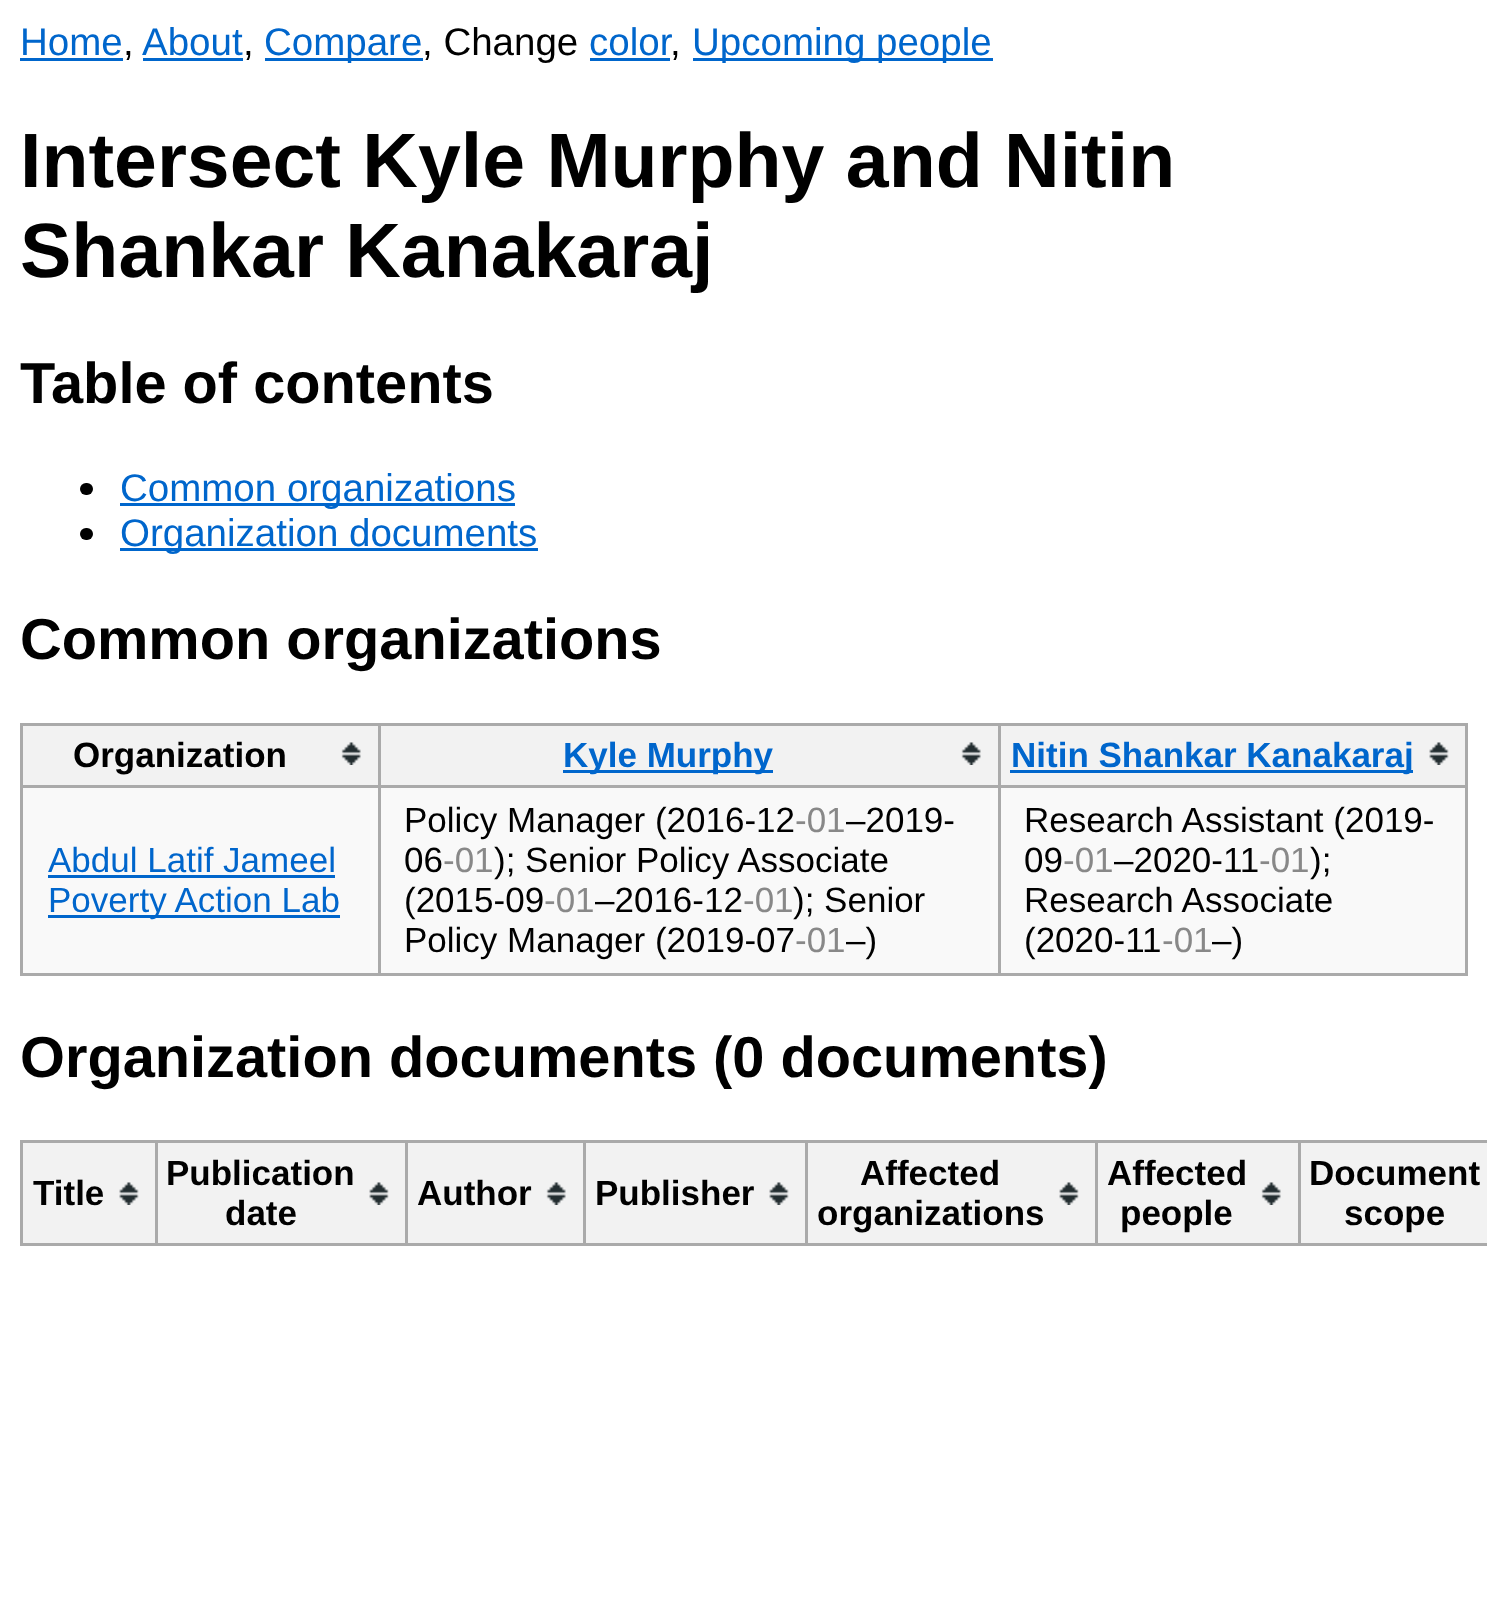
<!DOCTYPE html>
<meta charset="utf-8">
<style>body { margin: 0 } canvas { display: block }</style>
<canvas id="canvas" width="1487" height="1622"></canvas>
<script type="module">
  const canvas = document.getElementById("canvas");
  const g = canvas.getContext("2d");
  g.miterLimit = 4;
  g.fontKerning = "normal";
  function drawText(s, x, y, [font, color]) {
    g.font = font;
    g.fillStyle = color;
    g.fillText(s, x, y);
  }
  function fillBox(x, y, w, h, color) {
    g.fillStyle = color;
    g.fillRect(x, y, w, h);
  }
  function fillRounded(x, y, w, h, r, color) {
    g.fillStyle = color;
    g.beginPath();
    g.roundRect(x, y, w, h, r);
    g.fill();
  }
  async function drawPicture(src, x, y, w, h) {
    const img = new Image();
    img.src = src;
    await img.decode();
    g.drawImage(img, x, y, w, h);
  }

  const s1 = ["38.5px Liberation Sans", "#0066CC"];
  const s2 = ["38.5px Liberation Sans", "#000000"];
  const s3 = ["bold 77px Liberation Sans", "#000000"];
  const s4 = ["bold 57.75px Liberation Sans", "#000000"];
  const s5 = ["bold 35px Liberation Sans", "#000000"];
  const s6 = ["bold 35px Liberation Sans", "#0066CC"];
  const s7 = ["35px Liberation Sans", "#0066CC"];
  const s8 = ["35px Liberation Sans", "#000000"];
  const s9 = ["35px Liberation Sans", "#888888"];

  fillBox(0, 0, 1487, 1622, "#FFFFFF");
  drawText("Home", 20, 55, s1);
  fillBox(20, 58, 103, 3, "#0066CC");
  drawText(",", 123, 55, s2);
  drawText("About", 142, 55, s1);
  fillBox(143, 58, 100, 3, "#0066CC");
  drawText(",", 243, 55, s2);
  fillBox(265, 58, 158, 3, "#0066CC");
  drawText("Compare", 264, 55, s1);
  drawText(", Change", 422, 55, s2);
  drawText("color", 589, 55, s1);
  fillBox(590, 58, 80, 3, "#0066CC");
  drawText(",", 670, 55, s2);
  fillBox(693, 58, 300, 3, "#0066CC");
  drawText("Upcoming people", 692, 55, s1);
  drawText("Intersect Kyle Murphy and Nitin", 20, 187, s3);
  drawText("Shankar Kanakaraj", 20, 277, s3);
  drawText("Table of contents", 20, 403, s4);
  fillRounded(80, 483, 13, 12, 6, "#000000");
  fillBox(120, 503, 395, 3, "#0066CC");
  drawText("Common organizations", 120, 501, s1);
  fillRounded(80, 528, 13, 12, 6, "#000000");
  fillBox(120, 548, 418, 3, "#0066CC");
  drawText("Organization documents", 120, 546, s1);
  drawText("Common organizations", 20, 659, s4);
  fillBox(23, 788, 1442, 185, "#F9F9F9");
  fillBox(23, 726, 355, 59, "#F2F2F2");
  await drawPicture("pic1.png", 341, 742, 20, 23);
  fillBox(998, 723, 470, 3, "#AAAAAA");
  fillBox(998, 785, 470, 3, "#AAAAAA");
  fillBox(1465, 785, 3, 190, "#AAAAAA");
  fillBox(998, 973, 470, 3, "#AAAAAA");
  fillBox(998, 785, 3, 190, "#AAAAAA");
  fillBox(378, 785, 622, 3, "#AAAAAA");
  fillBox(998, 723, 3, 65, "#AAAAAA");
  fillBox(378, 723, 622, 3, "#AAAAAA");
  fillBox(378, 973, 622, 3, "#AAAAAA");
  fillBox(378, 785, 3, 190, "#AAAAAA");
  fillBox(20, 785, 360, 3, "#AAAAAA");
  fillBox(378, 723, 3, 65, "#AAAAAA");
  fillBox(20, 723, 360, 3, "#AAAAAA");
  fillBox(20, 973, 360, 3, "#AAAAAA");
  fillBox(20, 785, 3, 190, "#AAAAAA");
  fillBox(20, 723, 3, 65, "#AAAAAA");
  drawText("Organization", 73, 767, s5);
  fillBox(381, 726, 617, 59, "#F2F2F2");
  await drawPicture("pic2.png", 961, 742, 20, 23);
  fillBox(563, 770, 210, 3, "#0066CC");
  drawText("Kyle Murphy", 563, 767, s6);
  fillBox(1001, 726, 464, 59, "#F2F2F2");
  await drawPicture("pic3.png", 1429, 742, 20, 23);
  fillBox(1465, 723, 3, 65, "#AAAAAA");
  fillBox(1010, 770, 403, 3, "#0066CC");
  drawText("Nitin Shankar Kanakaraj", 1011, 767, s6);
  drawText("Abdul Latif Jameel", 48, 872, s7);
  fillBox(48, 875, 287, 3, "#0066CC");
  fillBox(48, 915, 292, 3, "#0066CC");
  drawText("Poverty Action Lab", 48, 912, s7);
  drawText("Policy Manager (2016-12", 404, 832, s8);
  drawText("-01", 795, 832, s9);
  drawText("–2019-", 846, 832, s8);
  drawText("06", 404, 872, s8);
  drawText("-01", 443, 872, s9);
  drawText("); Senior Policy Associate", 494, 872, s8);
  drawText("(2015-09", 404, 912, s8);
  drawText("-01", 544, 912, s9);
  drawText("–2016-12", 595, 912, s8);
  drawText("-01", 743, 912, s9);
  drawText("); Senior", 793, 912, s8);
  drawText("Policy Manager (2019-07", 404, 952, s8);
  drawText("-01", 795, 952, s9);
  drawText("–)", 846, 952, s8);
  drawText("Research Assistant (2019-", 1024, 832, s8);
  drawText("09", 1024, 872, s8);
  drawText("-01", 1063, 872, s9);
  drawText("–2020-11", 1114, 872, s8);
  drawText("-01", 1259, 872, s9);
  drawText(");", 1310, 872, s8);
  drawText("Research Associate", 1024, 912, s8);
  drawText("(2020-11", 1024, 952, s8);
  drawText("-01", 1162, 952, s9);
  drawText("–)", 1212, 952, s8);
  drawText("Organization documents (0 documents)", 20, 1077, s4);
  fillBox(23, 1143, 132, 100, "#F2F2F2");
  await drawPicture("pic3.png", 119, 1182, 20, 23);
  fillBox(1298, 1140, 189, 3, "#AAAAAA");
  fillBox(1298, 1243, 189, 3, "#AAAAAA");
  fillBox(1298, 1140, 3, 105, "#AAAAAA");
  fillBox(1095, 1140, 205, 3, "#AAAAAA");
  fillBox(1095, 1243, 205, 3, "#AAAAAA");
  fillBox(1095, 1140, 3, 105, "#AAAAAA");
  fillBox(805, 1140, 293, 3, "#AAAAAA");
  fillBox(805, 1243, 293, 3, "#AAAAAA");
  fillBox(805, 1140, 3, 105, "#AAAAAA");
  fillBox(583, 1140, 225, 3, "#AAAAAA");
  fillBox(583, 1243, 225, 3, "#AAAAAA");
  fillBox(583, 1140, 3, 105, "#AAAAAA");
  fillBox(405, 1140, 180, 3, "#AAAAAA");
  fillBox(405, 1243, 180, 3, "#AAAAAA");
  fillBox(405, 1140, 3, 105, "#AAAAAA");
  fillBox(155, 1140, 253, 3, "#AAAAAA");
  fillBox(155, 1243, 253, 3, "#AAAAAA");
  fillBox(155, 1140, 3, 105, "#AAAAAA");
  fillBox(20, 1140, 138, 3, "#AAAAAA");
  fillBox(20, 1243, 138, 3, "#AAAAAA");
  fillBox(20, 1140, 3, 105, "#AAAAAA");
  drawText("Title", 33, 1205, s5);
  fillBox(158, 1143, 247, 100, "#F2F2F2");
  await drawPicture("pic4.png", 369, 1182, 20, 23);
  drawText("Publication", 166, 1185, s5);
  drawText("date", 225, 1225, s5);
  fillBox(408, 1143, 175, 100, "#F2F2F2");
  await drawPicture("pic5.png", 546, 1182, 20, 23);
  drawText("Author", 417, 1205, s5);
  fillBox(586, 1143, 219, 100, "#F2F2F2");
  await drawPicture("pic3.png", 769, 1182, 20, 23);
  drawText("Publisher", 595, 1205, s5);
  fillBox(808, 1143, 287, 100, "#F2F2F2");
  await drawPicture("pic4.png", 1059, 1182, 20, 23);
  drawText("Affected", 860, 1185, s5);
  drawText("organizations", 817, 1225, s5);
  fillBox(1098, 1143, 200, 100, "#F2F2F2");
  await drawPicture("pic6.png", 1261, 1182, 20, 23);
  drawText("Affected", 1107, 1185, s5);
  drawText("people", 1120, 1225, s5);
  fillBox(1301, 1143, 186, 100, "#F2F2F2");
  drawText("Document", 1309, 1185, s5);
  drawText("scope", 1344, 1225, s5);
</script>
